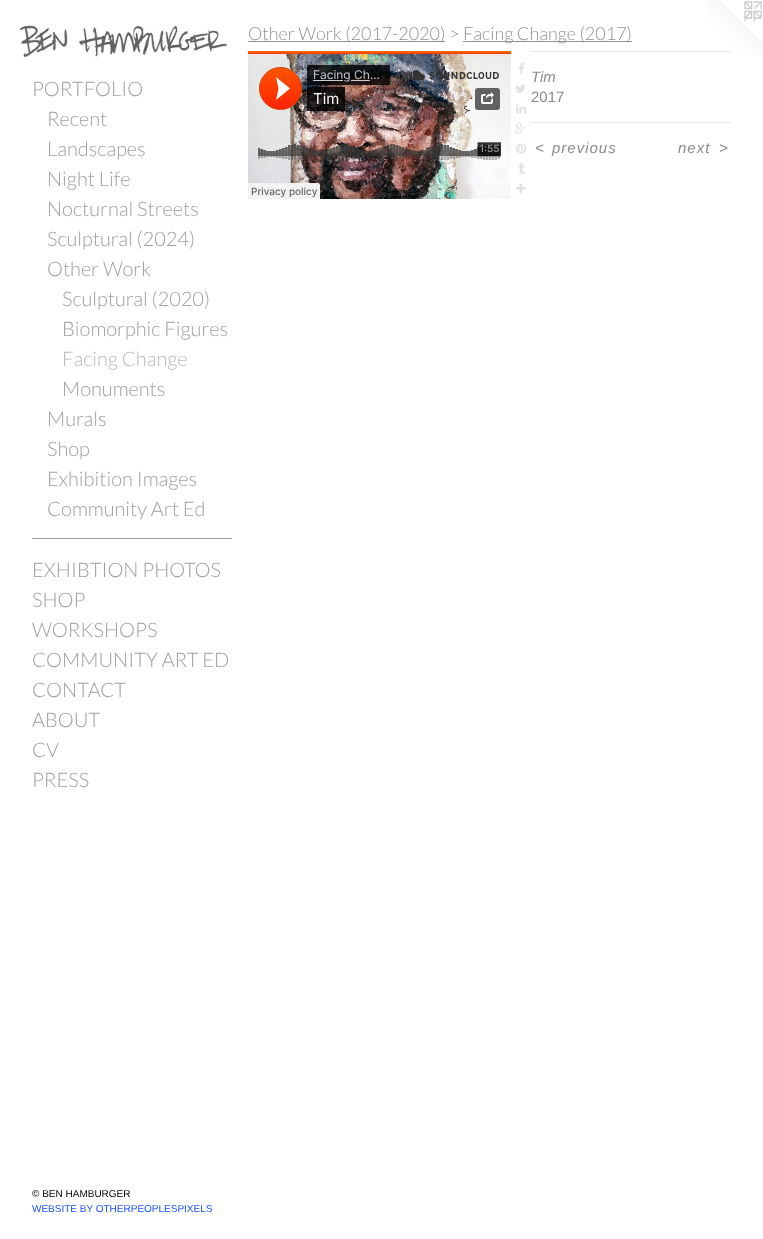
<!DOCTYPE html>
<meta charset="utf-8">
<style>body { margin: 0 } canvas { display: block }</style>
<canvas id="canvas" width="763" height="1239"></canvas>
<script type="module">
  const canvas = document.getElementById("canvas");
  const g = canvas.getContext("2d");
  g.miterLimit = 4;
  g.fontKerning = "normal";
  function drawText(s, x, y, [font, color]) {
    g.font = font;
    g.fillStyle = color;
    g.fillText(s, x, y);
  }
  function fillBox(x, y, w, h, color) {
    g.fillStyle = color;
    g.fillRect(x, y, w, h);
  }
  async function drawPicture(src, x, y, w, h) {
    const img = new Image();
    img.src = src;
    await img.decode();
    g.drawImage(img, x, y, w, h);
  }

  const s1 = ["300 20px Lato", "#A09F9F"];
  const s2 = ["300 20px Lato", "#B9B9B9"];
  const s3 = ["10px Liberation Sans", "#000000"];
  const s4 = ["10px Liberation Sans", "#1A53FF"];
  const s5 = ["300 18px Lato", "#919191"];
  const s6 = ["italic 15px Liberation Sans", "#8A8A8A"];
  const s7 = ["15px Liberation Sans", "#8A8A8A"];

  fillBox(0, 0, 763, 1239, "#FFFFFF");
  await drawPicture("pic1.png", 19, 25, 209, 33);
  drawText("PORTFOLIO", 32, 96, s1);
  drawText("Recent", 47, 126, s1);
  drawText("Landscapes", 47, 156, s1);
  drawText("Night Life", 47, 186, s1);
  drawText("Nocturnal Streets", 47, 216, s1);
  drawText("Sculptural (2024)", 47, 246, s1);
  drawText("Other Work", 47, 276, s1);
  drawText("Sculptural (2020)", 62, 306, s1);
  drawText("Biomorphic Figures", 62, 336, s1);
  drawText("Facing Change", 62, 366, s2);
  drawText("Monuments", 62, 396, s1);
  drawText("Murals", 47, 426, s1);
  drawText("Shop", 47, 456, s1);
  drawText("Exhibition Images", 47, 486, s1);
  drawText("Community Art Ed", 47, 516, s1);
  fillBox(32, 538, 200, 1, "#A09F9F");
  drawText("EXHIBTION PHOTOS", 32, 577, s1);
  drawText("SHOP", 32, 607, s1);
  drawText("WORKSHOPS", 32, 637, s1);
  drawText("COMMUNITY ART ED", 32, 667, s1);
  drawText("CONTACT", 32, 697, s1);
  drawText("ABOUT", 32, 727, s1);
  drawText("CV", 32, 757, s1);
  drawText("PRESS", 32, 787, s1);
  drawText("© BEN HAMBURGER", 32, 1197, s3);
  drawText("WEBSITE BY OTHERPEOPLESPIXELS", 32, 1212, s4);
  fillBox(248, 41, 197, 1, "#919191");
  drawText("Other Work (2017-2020) >", 248, 40, s5);
  fillBox(463, 41, 169, 1, "#919191");
  drawText("Facing Change (2017)", 463, 40, s5);
  await drawPicture("pic2.png", 248, 51, 263, 148);
  await drawPicture("pic3.png", 518, 62, 7, 12);
  await drawPicture("pic4.png", 515, 84, 11, 9);
  await drawPicture("pic5.png", 516, 103, 11, 11);
  await drawPicture("pic6.png", 515, 122, 11, 12);
  await drawPicture("pic7.png", 516, 143, 11, 11);
  await drawPicture("pic8.png", 518, 162, 7, 12);
  await drawPicture("pic9.png", 516, 183, 10, 10);
  await drawPicture("pic10.png", 707, 0, 56, 56);
  fillBox(531, 51, 200, 1, "#E8E8E8");
  drawText("Tim", 531, 82, s6);
  drawText("2017", 531, 102, s7);
  fillBox(531, 122, 200, 1, "#E8E8E8");
  g.letterSpacing = "1px";
  drawText("<", 535, 153, s6);
  drawText("previous", 552, 153, s6);
  drawText("next", 678, 153, s6);
  drawText(">", 719, 153, s6);
</script>
